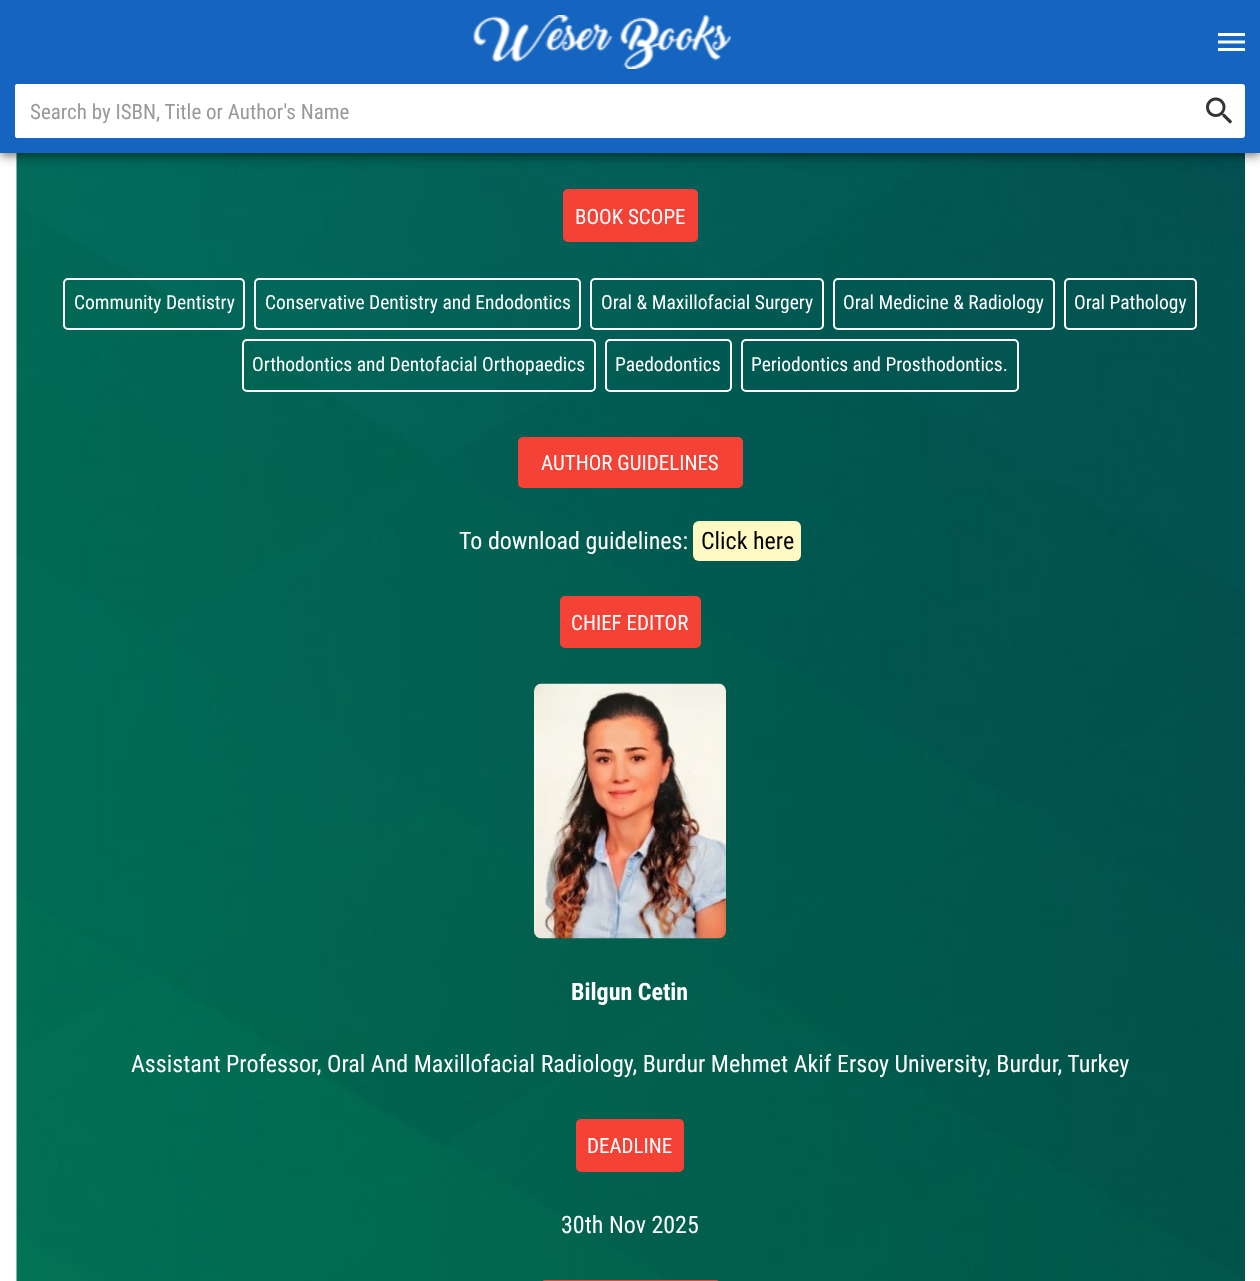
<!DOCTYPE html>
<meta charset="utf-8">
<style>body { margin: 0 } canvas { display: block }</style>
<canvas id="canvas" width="1260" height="1281"></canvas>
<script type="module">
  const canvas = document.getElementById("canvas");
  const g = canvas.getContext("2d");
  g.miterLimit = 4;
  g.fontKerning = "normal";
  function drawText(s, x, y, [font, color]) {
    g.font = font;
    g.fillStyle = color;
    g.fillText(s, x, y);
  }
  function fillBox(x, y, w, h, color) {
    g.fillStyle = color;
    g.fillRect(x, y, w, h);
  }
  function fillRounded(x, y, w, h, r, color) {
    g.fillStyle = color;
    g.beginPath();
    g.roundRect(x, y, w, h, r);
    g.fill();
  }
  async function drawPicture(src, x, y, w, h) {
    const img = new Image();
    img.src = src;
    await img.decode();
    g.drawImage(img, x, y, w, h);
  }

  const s1 = ["21px Roboto Condensed", "#999999"];
  const s2 = ["21px Roboto Condensed", "#FFFFFF"];
  const s3 = ["19.5px Roboto Condensed", "#FFFFFF"];
  const s4 = ["24px Roboto Condensed", "#FFFFFF"];
  const s5 = ["24px Roboto Condensed", "#000000"];
  const s6 = ["bold 24px Roboto Condensed", "#FFFFFF"];

  fillBox(0, 0, 1260, 1281, "#FFFFFF");
  await drawPicture("pic4.png", 16, 153, 1229, 1128);
  g.fillStyle = "rgba(0, 0, 0, 0.3)";
  g.filter = "blur(3px)";
  g.beginPath();
  g.rect(2, 5, 1257, 150);
  g.fill();
  g.filter = "none";
  g.fillStyle = "rgba(0, 0, 0, 0.12)";
  g.filter = "blur(7.5px)";
  g.beginPath();
  g.rect(0, 2, 1260, 153);
  g.fill();
  g.filter = "none";
  g.fillStyle = "rgba(0, 0, 0, 0.14)";
  g.filter = "blur(4px)";
  g.beginPath();
  g.rect(0, 6, 1260, 153);
  g.fill();
  g.filter = "none";
  fillBox(0, 0, 1260, 153, "#1565C0");
  await drawPicture("pic1.png", 473, 15, 258, 54);
  await drawPicture("pic2.png", 1218, 33, 27, 18);
  fillRounded(15, 84, 1230, 54, 3, "#FFFFFF");
  g.beginPath();
  g.roundRect(15, 84, 1179, 54, [3, 0, 0, 3]);
  g.fill();
  g.save();
  g.beginPath();
  g.rect(30, 99, 1149, 24);
  g.clip();
  drawText("Search by ISBN, Title or Author's Name", 30, 119, s1);
  g.restore();
  await drawPicture("pic3.png", 1206, 97, 27, 27);
  fillRounded(563, 189, 135, 53, 5, "#F44336");
  drawText("BOOK SCOPE", 575, 224, s2);
  g.beginPath();
  g.roundRect(64, 279, 180, 50, 4);
  g.strokeStyle = "#FFFFFF";
  g.lineWidth = 2;
  g.stroke();
  drawText("Community Dentistry", 74, 309, s3);
  g.beginPath();
  g.roundRect(255, 279, 325, 50, 4);
  g.stroke();
  drawText("Conservative Dentistry and Endodontics", 265, 309, s3);
  g.beginPath();
  g.roundRect(591, 279, 232, 50, 4);
  g.stroke();
  drawText("Oral & Maxillofacial Surgery", 601, 309, s3);
  g.beginPath();
  g.roundRect(834, 279, 220, 50, 4);
  g.stroke();
  drawText("Oral Medicine & Radiology", 843, 309, s3);
  g.beginPath();
  g.roundRect(1065, 279, 131, 50, 4);
  g.stroke();
  drawText("Oral Pathology", 1074, 309, s3);
  g.beginPath();
  g.roundRect(243, 340, 352, 51, 4);
  g.stroke();
  drawText("Orthodontics and Dentofacial Orthopaedics", 252, 371, s3);
  g.beginPath();
  g.roundRect(606, 340, 125, 51, 4);
  g.stroke();
  drawText("Paedodontics", 615, 371, s3);
  g.beginPath();
  g.roundRect(742, 340, 276, 51, 4);
  g.stroke();
  drawText("Periodontics and Prosthodontics.", 751, 371, s3);
  fillRounded(518, 437, 225, 51, 5, "#F44336");
  drawText("AUTHOR GUIDELINES", 541, 470, s2);
  drawText("To download guidelines:", 459, 549, s4);
  fillRounded(693, 521, 108, 40, 6, "#FFF9C4");
  drawText("Click here", 701, 549, s5);
  fillRounded(560, 596, 141, 52, 5, "#F44336");
  drawText("CHIEF EDITOR", 571, 630, s2);
  await drawPicture("pic5.png", 534, 683, 192, 256);
  drawText("Bilgun Cetin", 571, 1000, s6);
  drawText("Assistant Professor, Oral And Maxillofacial Radiology, Burdur Mehmet Akif Ersoy University, Burdur, Turkey", 131, 1072, s4);
  fillRounded(576, 1119, 108, 53, 5, "#F44336");
  drawText("DEADLINE", 587, 1153, s2);
  drawText("30th Nov 2025", 561, 1233, s4);
  fillRounded(542, 1280, 177, 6, 5, "#F44336");
</script>
